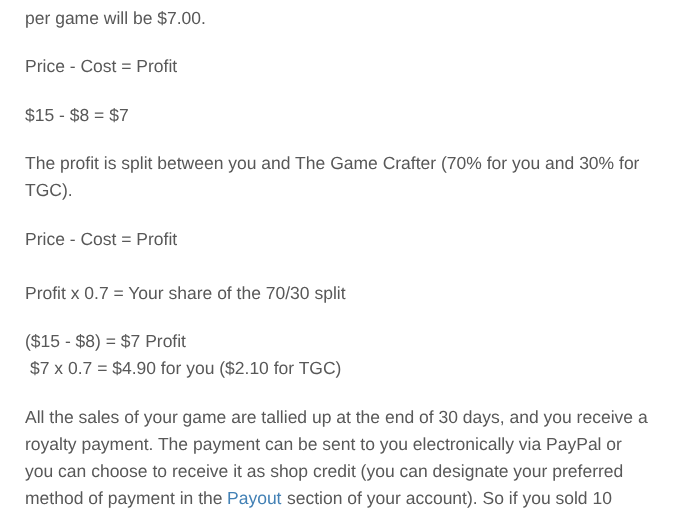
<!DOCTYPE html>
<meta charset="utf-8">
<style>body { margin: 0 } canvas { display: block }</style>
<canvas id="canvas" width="673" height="508"></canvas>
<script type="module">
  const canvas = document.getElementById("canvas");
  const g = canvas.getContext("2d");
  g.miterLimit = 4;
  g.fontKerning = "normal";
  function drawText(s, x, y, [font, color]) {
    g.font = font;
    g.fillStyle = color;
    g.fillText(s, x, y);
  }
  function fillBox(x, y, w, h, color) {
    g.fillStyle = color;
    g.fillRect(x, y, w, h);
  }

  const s1 = ["17.5px Liberation Sans", "#585858"];
  const s2 = ["17.5px Liberation Sans", "#4381B5"];

  fillBox(0, 0, 673, 508, "#FFFFFF");
  drawText("per game will be $7.00.", 25, 24, s1);
  drawText("Price - Cost = Profit", 25, 72, s1);
  drawText("$15 - $8 = $7", 25, 121, s1);
  drawText("The profit is split between you and The Game Crafter (70% for you and 30% for", 25, 169, s1);
  drawText("TGC).", 25, 196, s1);
  drawText("Price - Cost = Profit", 25, 245, s1);
  drawText("Profit x 0.7 = Your share of the 70/30 split", 25, 299, s1);
  drawText("($15 - $8) = $7 Profit", 25, 347, s1);
  drawText("$7 x 0.7 = $4.90 for you ($2.10 for TGC)", 30, 374, s1);
  drawText("All the sales of your game are tallied up at the end of 30 days, and you receive a", 25, 423, s1);
  drawText("royalty payment. The payment can be sent to you electronically via PayPal or", 25, 450, s1);
  drawText("you can choose to receive it as shop credit (you can designate your preferred", 25, 477, s1);
  drawText("method of payment in the", 25, 504, s1);
  drawText("Payout", 227, 504, s2);
  drawText("section of your account). So if you sold 10", 287, 504, s1);
</script>
